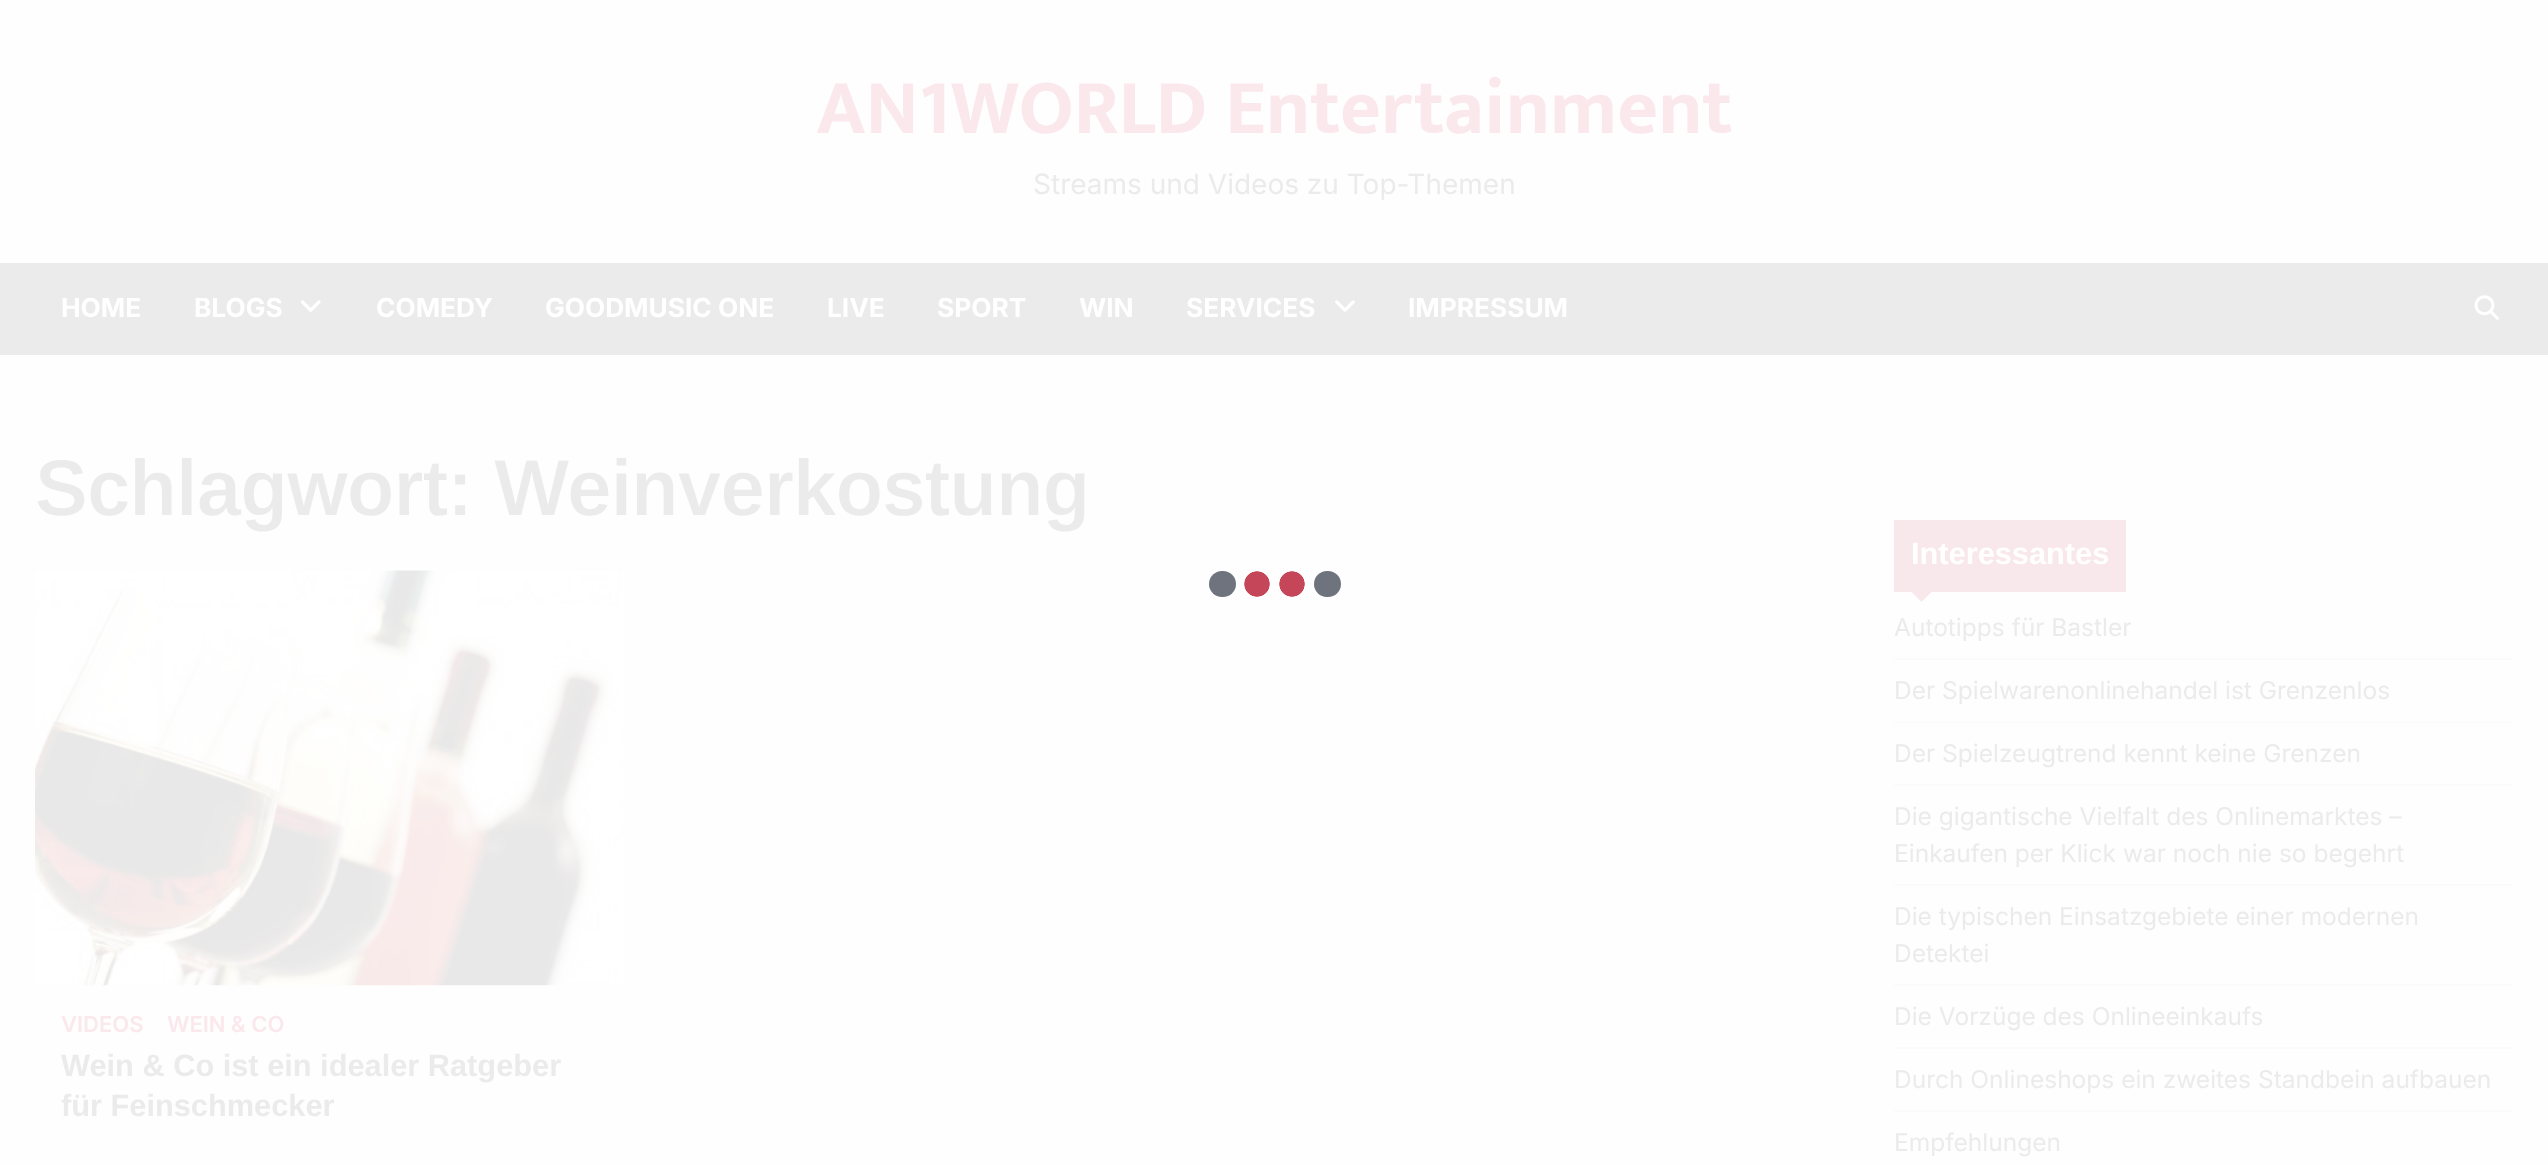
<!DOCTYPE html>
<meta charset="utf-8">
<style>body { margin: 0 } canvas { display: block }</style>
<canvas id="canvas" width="2548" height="1166"></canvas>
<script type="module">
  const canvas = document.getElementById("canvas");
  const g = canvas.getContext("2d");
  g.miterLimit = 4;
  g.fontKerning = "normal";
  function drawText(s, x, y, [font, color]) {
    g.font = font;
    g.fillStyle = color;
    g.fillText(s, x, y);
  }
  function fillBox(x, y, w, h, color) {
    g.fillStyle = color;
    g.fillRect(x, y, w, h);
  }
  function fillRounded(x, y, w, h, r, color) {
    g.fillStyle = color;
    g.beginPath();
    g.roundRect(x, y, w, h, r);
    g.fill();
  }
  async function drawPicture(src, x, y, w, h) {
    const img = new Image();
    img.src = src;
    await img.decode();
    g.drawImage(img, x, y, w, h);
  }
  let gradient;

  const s1 = ["bold 78.75px Mukta", "#FBE8ED"];
  const s2 = ["28px Inter", "#EBEBEB"];
  const s3 = ["bold 26.25px Inter", "#FFFFFF"];
  const s4 = ["600 78.75px Arimo", "#EBEBEB"];
  const s5 = ["600 22px Inter", "#FBE8ED"];
  const s6 = ["bold 30.75px Arimo", "#EBEBEB"];
  const s7 = ["bold 30.75px Arimo", "#FFFFFF"];
  const s8 = ["24.5px Inter", "#EBEBEB"];

  fillBox(0, 0, 2548, 1166, "#FEFEFE");
  drawText("AN1WORLD Entertainment", 816, 133, s1);
  drawText("Streams und Videos zu Top-Themen", 1033, 194, s2);
  fillBox(0, 263, 2548, 92, "#EBEBEB");
  drawText("HOME", 61, 317, s3);
  drawText("BLOGS", 194, 317, s3);
  await drawPicture("pic1.png", 300, 300, 21, 12);
  drawText("COMEDY", 376, 317, s3);
  drawText("GOODMUSIC ONE", 545, 317, s3);
  drawText("LIVE", 827, 317, s3);
  drawText("SPORT", 937, 317, s3);
  drawText("WIN", 1079, 317, s3);
  drawText("SERVICES", 1186, 317, s3);
  await drawPicture("pic2.png", 1335, 300, 20, 12);
  drawText("IMPRESSUM", 1408, 317, s3);
  await drawPicture("pic3.png", 2474, 295, 25, 25);
  drawText("Schlagwort: Weinverkostung", 35, 515, s4);
  await drawPicture("pic4.png", 35, 570, 590, 416);
  drawText("VIDEOS", 61, 1032, s5);
  drawText("WEIN & CO", 167, 1032, s5);
  drawText("Wein & Co ist ein idealer Ratgeber", 61, 1076, s6);
  drawText("für Feinschmecker", 61, 1116, s6);
  fillBox(1894, 520, 232, 72, "#F8E8EB");
  drawText("Interessantes", 1911, 564, s7);
  g.fillStyle = "#F8E8EB";
  g.beginPath();
  g.moveTo(1907.5, 588);
  g.lineTo(1935.5, 588);
  g.lineTo(1921.5, 602);
  g.closePath();
  g.fill();
  fillBox(1894, 658, 619, 2, "#FBFBFB");
  drawText("Autotipps für Bastler", 1894, 636, s8);
  fillBox(1894, 721, 619, 2, "#FBFBFB");
  drawText("Der Spielwarenonlinehandel ist Grenzenlos", 1894, 699, s8);
  fillBox(1894, 784, 619, 2, "#FBFBFB");
  drawText("Der Spielzeugtrend kennt keine Grenzen", 1894, 762, s8);
  fillBox(1894, 884, 619, 2, "#FBFBFB");
  drawText("Die gigantische Vielfalt des Onlinemarktes –", 1894, 825, s8);
  drawText("Einkaufen per Klick war noch nie so begehrt", 1894, 862, s8);
  fillBox(1894, 984, 619, 2, "#FBFBFB");
  drawText("Die typischen Einsatzgebiete einer modernen", 1894, 925, s8);
  drawText("Detektei", 1894, 962, s8);
  fillBox(1894, 1047, 619, 2, "#FBFBFB");
  drawText("Die Vorzüge des Onlineeinkaufs", 1894, 1025, s8);
  fillBox(1894, 1110, 619, 2, "#FBFBFB");
  drawText("Durch Onlineshops ein zweites Standbein aufbauen", 1894, 1088, s8);
  drawText("Empfehlungen", 1894, 1151, s8);
  gradient = g.createRadialGradient(1292, 584, 0, 1292, 584, 13);
  gradient.addColorStop(0.95, "#C54559");
  gradient.addColorStop(1, "#FEFEFE");
  g.fillStyle = gradient;
  g.fillRect(1279, 571, 26, 26);
  gradient = g.createRadialGradient(1257, 584, 0, 1257, 584, 13);
  gradient.addColorStop(0.95, "#C54559");
  gradient.addColorStop(1, "#FEFEFE");
  g.fillStyle = gradient;
  g.fillRect(1244, 571, 26, 26);
  fillRounded(1209, 571, 27, 26, 13, "#6E737E");
  fillRounded(1314, 571, 27, 26, 13, "#6E737E");
</script>
